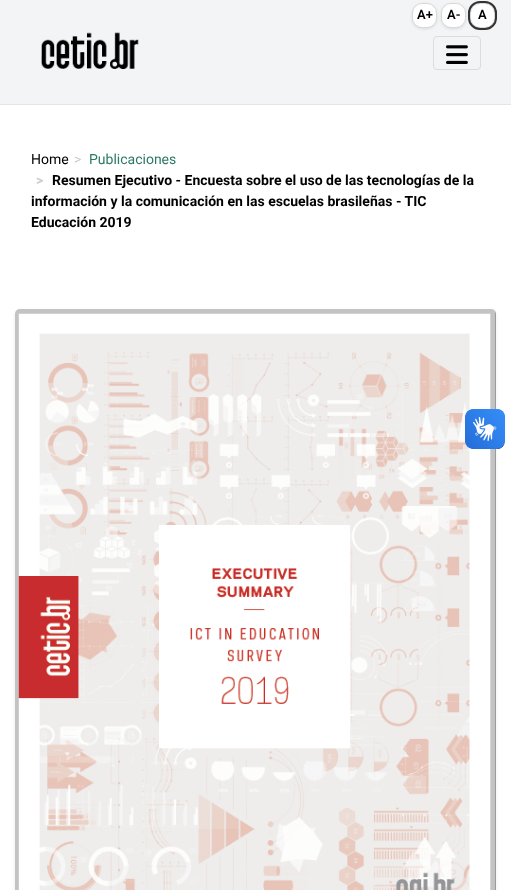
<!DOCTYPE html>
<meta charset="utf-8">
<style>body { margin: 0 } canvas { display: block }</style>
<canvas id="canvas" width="511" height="890"></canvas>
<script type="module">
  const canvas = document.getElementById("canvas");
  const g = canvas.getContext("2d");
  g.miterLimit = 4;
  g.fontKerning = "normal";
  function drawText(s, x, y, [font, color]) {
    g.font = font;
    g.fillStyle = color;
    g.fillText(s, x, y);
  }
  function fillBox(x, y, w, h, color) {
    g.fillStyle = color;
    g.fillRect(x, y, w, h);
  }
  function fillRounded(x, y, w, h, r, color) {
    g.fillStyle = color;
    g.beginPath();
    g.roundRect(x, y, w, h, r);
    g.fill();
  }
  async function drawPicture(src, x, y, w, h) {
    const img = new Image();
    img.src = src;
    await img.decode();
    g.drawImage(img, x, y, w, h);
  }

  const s1 = ["600 13px Roboto", "#000000"];
  const s2 = ["14px Roboto", "#000000"];
  const s3 = ["14px Roboto", "#CCCCCC"];
  const s4 = ["14px Roboto", "#2D7965"];
  const s5 = ["bold 14px Roboto", "#CCCCCC"];
  const s6 = ["bold 14px Roboto", "#000000"];

  fillBox(0, 0, 511, 890, "#FFFFFF");
  fillBox(0, 0, 511, 104, "#F3F4F6");
  g.fillStyle = "rgba(0, 0, 0, 0.1)";
  g.filter = "blur(1.5px)";
  g.beginPath();
  g.roundRect(412, 4, 25, 25, 10);
  g.fill();
  g.filter = "none";
  fillRounded(412, 3, 25, 25, 10, "#FFFFFF");
  g.beginPath();
  g.roundRect(412.5, 3.5, 24, 24, 9.5);
  g.strokeStyle = "rgba(0, 0, 0, 0.15)";
  g.stroke();
  drawText("A+", 417, 19, s1);
  g.fillStyle = "rgba(0, 0, 0, 0.1)";
  g.filter = "blur(1.5px)";
  g.beginPath();
  g.roundRect(441, 4, 25, 25, 10);
  g.fill();
  g.filter = "none";
  fillRounded(441, 3, 25, 25, 10, "#FFFFFF");
  g.beginPath();
  g.roundRect(441.5, 3.5, 24, 24, 9.5);
  g.stroke();
  drawText("A-", 447, 19, s1);
  g.fillStyle = "rgba(0, 0, 0, 0.1)";
  g.filter = "blur(1.5px)";
  g.beginPath();
  g.roundRect(470, 4, 25, 25, 10);
  g.fill();
  g.filter = "none";
  fillRounded(470, 3, 25, 25, 10, "#FFFFFF");
  g.beginPath();
  g.roundRect(470.5, 3.5, 24, 24, 9.5);
  g.stroke();
  g.beginPath();
  g.roundRect(469, 2, 27, 27, 11);
  g.strokeStyle = "#333333";
  g.lineWidth = 2;
  g.stroke();
  drawText("A", 478, 19, s1);
  fillBox(0, 104, 511, 1, "#E5E5E5");
  await drawPicture("pic1.png", 41, 32, 98, 38);
  g.beginPath();
  g.roundRect(433.5, 36.5, 47, 33, 3.5);
  g.strokeStyle = "#DBDCDD";
  g.lineWidth = 1;
  g.stroke();
  await drawPicture("pic2.png", 446, 45, 22, 19);
  drawText("Home", 31, 164, s2);
  drawText(">", 74, 164, s3);
  drawText("Publicaciones", 89, 164, s4);
  drawText(">", 36, 185, s5);
  drawText("Resumen Ejecutivo - Encuesta sobre el uso de las tecnologías de la", 52, 185, s6);
  drawText("información y la comunicación en las escuelas brasileñas - TIC", 31, 206, s6);
  drawText("Educación 2019", 31, 227, s6);
  g.fillStyle = "rgba(0, 0, 0, 0.07)";
  g.filter = "blur(2px)";
  g.beginPath();
  g.roundRect(15, 311, 481, 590, 5);
  g.fill();
  g.filter = "none";
  await drawPicture("pic3.png", 15, 309, 481, 581);
  await drawPicture("pic4.png", 465, 409, 40, 40);
  await drawPicture("pic5.png", 465, 409, 40, 40);
</script>
